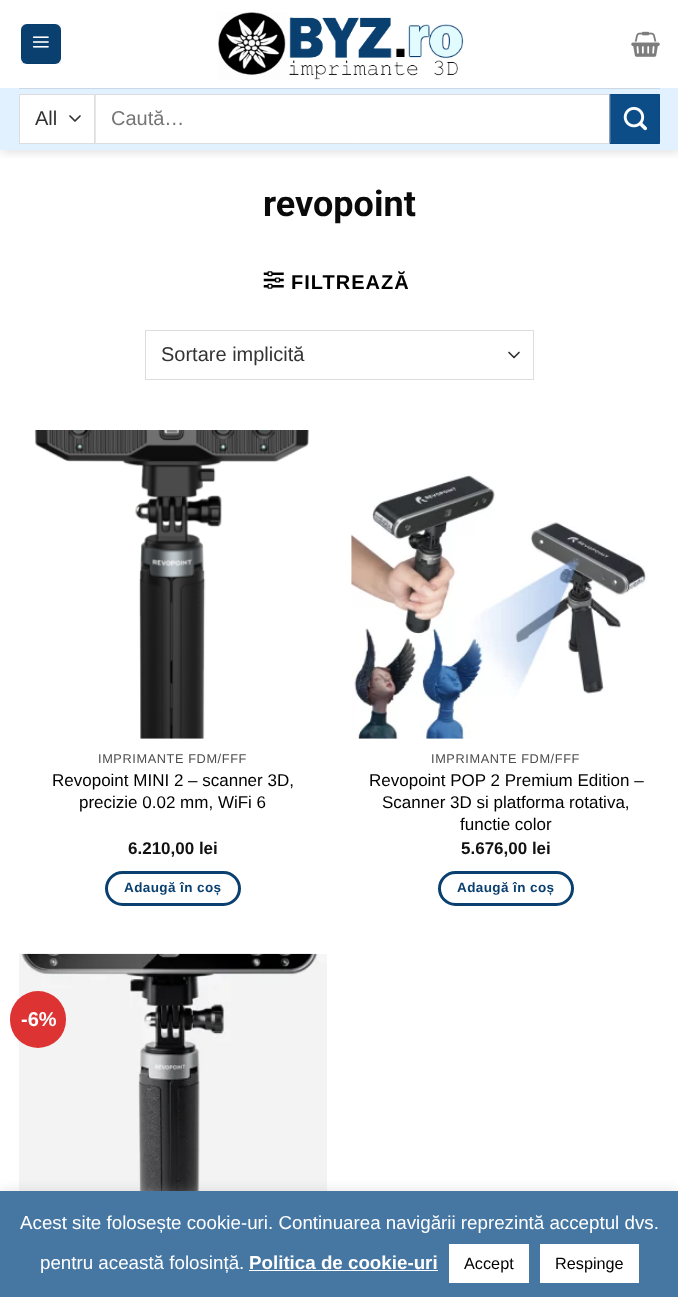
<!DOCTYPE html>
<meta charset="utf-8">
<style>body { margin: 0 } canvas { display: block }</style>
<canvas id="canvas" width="678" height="1297"></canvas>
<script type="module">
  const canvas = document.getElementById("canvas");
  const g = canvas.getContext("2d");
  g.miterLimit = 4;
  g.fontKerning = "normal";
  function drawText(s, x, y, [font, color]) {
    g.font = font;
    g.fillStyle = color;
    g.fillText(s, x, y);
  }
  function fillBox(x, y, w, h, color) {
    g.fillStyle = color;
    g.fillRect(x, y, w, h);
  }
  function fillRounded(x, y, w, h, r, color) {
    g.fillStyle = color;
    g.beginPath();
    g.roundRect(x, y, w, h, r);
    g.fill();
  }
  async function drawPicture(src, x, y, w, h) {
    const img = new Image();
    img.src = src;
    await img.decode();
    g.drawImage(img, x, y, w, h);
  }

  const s1 = ["20px Liberation Sans", "#333333"];
  const s2 = ["20px Liberation Sans", "#757575"];
  const s3 = ["bold 36px Roboto", "#0A0A0A"];
  const s4 = ["bold 20px Liberation Sans", "#000000"];
  const s5 = ["12.75px Liberation Sans", "#4D4D4D"];
  const s6 = ["17px Liberation Sans", "#000000"];
  const s7 = ["bold 17px Liberation Sans", "#111111"];
  const s8 = ["bold 13.5px Liberation Sans", "#0A4070"];
  const s9 = ["bold 20px Liberation Sans", "#FFFFFF"];
  const s10 = ["18.75px Liberation Sans", "#FFFFFF"];
  const s11 = ["bold 18.75px Liberation Sans", "#FFFFFF"];
  const s12 = ["16.25px Liberation Sans", "#000000"];

  fillBox(0, 0, 678, 1297, "#FFFFFF");
  g.save();
  g.beginPath();
  g.rect(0, 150, 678, 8);
  g.clip();
  g.fillStyle = "rgba(0, 0, 0, 0.15)";
  g.filter = "blur(6px)";
  g.beginPath();
  g.rect(1, 1, 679, 150);
  g.fill();
  g.filter = "none";
  g.restore();
  fillRounded(21, 24, 40, 40, 6, "#0A4070");
  g.strokeStyle = "rgba(0, 0, 0, 0.05)";
  g.strokeRect(21.5, 24.5, 39, 39);
  await drawPicture("pic1.png", 32, 36, 17, 12);
  await drawPicture("pic2.png", 218, 12, 246, 68);
  await drawPicture("pic3.png", 631, 31, 29, 26);
  fillBox(0, 88, 678, 62, "#E2F1FF");
  fillBox(19, 88, 641, 1, "#CBD9E6");
  fillBox(20, 95, 74, 48, "#FFFFFF");
  g.beginPath();
  g.moveTo(70, 116);
  g.lineTo(75, 121);
  g.lineTo(80, 116);
  g.strokeStyle = "#333333";
  g.lineWidth = 1.7;
  g.lineCap = "round";
  g.lineJoin = "round";
  g.stroke();
  g.strokeStyle = "#DDDDDD";
  g.lineWidth = 1;
  g.lineJoin = "miter";
  g.strokeRect(19.5, 94.5, 75, 49);
  drawText("All", 35, 125, s1);
  g.fillStyle = "#FFFFFF";
  g.beginPath();
  g.rect(95.5, 94.5, 514, 49);
  g.fill();
  g.stroke();
  drawText("Caută…", 111, 125, s2);
  g.fillStyle = "#0C4D87";
  g.beginPath();
  g.rect(610.5, 94.5, 49, 49);
  g.fill();
  g.strokeStyle = "#0B4980";
  g.stroke();
  await drawPicture("pic4.png", 623, 106, 24, 25);
  drawText("revopoint", 263, 216, s3);
  await drawPicture("pic5.png", 263, 271, 21, 18);
  g.letterSpacing = "1px";
  drawText("FILTREAZĂ", 291, 289, s4);
  g.beginPath();
  g.moveTo(509, 352.5);
  g.lineTo(514, 357.5);
  g.lineTo(519, 352.5);
  g.strokeStyle = "#333333";
  g.lineWidth = 1.7;
  g.lineJoin = "round";
  g.stroke();
  g.strokeStyle = "#DDDDDD";
  g.lineWidth = 1;
  g.lineJoin = "miter";
  g.strokeRect(145.5, 330.5, 388, 49);
  g.letterSpacing = "0px";
  drawText("Sortare implicită", 161, 361, s1);
  await drawPicture("pic6.png", 34, 430, 275, 309);
  g.letterSpacing = "0.6px";
  drawText("IMPRIMANTE FDM/FFF", 98, 763, s5);
  g.letterSpacing = "0px";
  drawText("Revopoint MINI 2 – scanner 3D,", 52, 786, s6);
  drawText("precizie 0.02 mm, WiFi 6", 79, 808, s6);
  drawText("6.210,00 lei", 128, 854, s7);
  g.beginPath();
  g.roundRect(106.5, 872.5, 133, 32, 16);
  g.strokeStyle = "#0A4070";
  g.lineWidth = 3;
  g.stroke();
  g.letterSpacing = "0.4px";
  drawText("Adaugă în coș", 124, 892, s8);
  await drawPicture("pic7.png", 351, 474, 296, 265);
  g.letterSpacing = "0.6px";
  drawText("IMPRIMANTE FDM/FFF", 431, 763, s5);
  g.letterSpacing = "0px";
  drawText("Revopoint POP 2 Premium Edition –", 369, 786, s6);
  drawText("Scanner 3D si platforma rotativa,", 382, 808, s6);
  drawText("functie color", 460, 830, s6);
  drawText("5.676,00 lei", 461, 854, s7);
  g.beginPath();
  g.roundRect(439.5, 872.5, 133, 32, 16);
  g.stroke();
  g.letterSpacing = "0.4px";
  drawText("Adaugă în coș", 457, 892, s8);
  await drawPicture("pic8.png", 19, 953, 308, 238);
  fillRounded(10, 991, 56, 57, 28, "#DD3333");
  g.letterSpacing = "0px";
  drawText("-6%", 21, 1026, s9);
  g.fillStyle = "rgba(172, 171, 171, 0.3)";
  g.filter = "blur(6px)";
  g.beginPath();
  g.rect(0, 1190, 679, 106);
  g.fill();
  g.filter = "none";
  fillBox(0, 1191, 678, 106, "#4677A3");
  drawText("Acest site folosește cookie-uri. Continuarea navigării reprezintă acceptul dvs.", 20, 1229, s10);
  drawText("pentru această folosință.", 40, 1269, s10);
  drawText("Politica de cookie-uri", 249, 1269, s11);
  fillBox(249, 1270, 189, 1, "#FFFFFF");
  fillBox(449, 1244, 80, 39, "#FFFFFF");
  drawText("Accept", 464, 1269, s12);
  fillBox(540, 1244, 99, 39, "#FFFFFF");
  drawText("Respinge", 555, 1269, s12);
</script>
